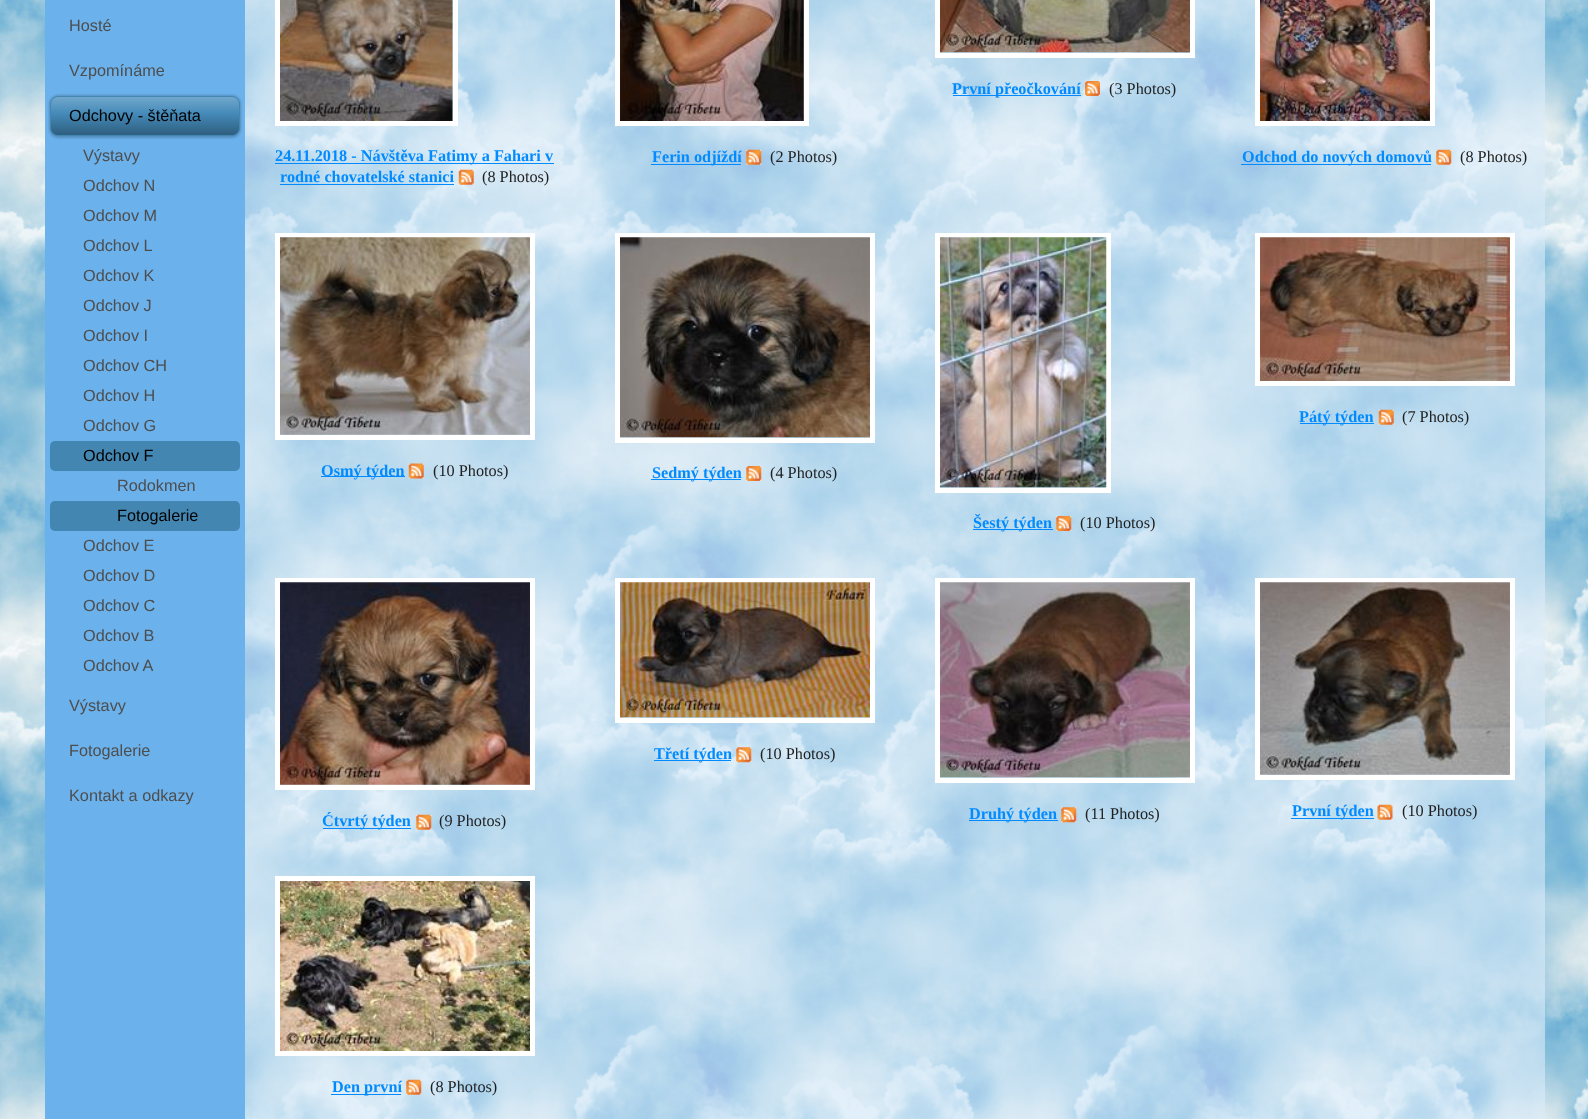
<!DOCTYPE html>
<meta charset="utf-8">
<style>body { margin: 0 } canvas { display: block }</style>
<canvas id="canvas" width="1588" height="1119"></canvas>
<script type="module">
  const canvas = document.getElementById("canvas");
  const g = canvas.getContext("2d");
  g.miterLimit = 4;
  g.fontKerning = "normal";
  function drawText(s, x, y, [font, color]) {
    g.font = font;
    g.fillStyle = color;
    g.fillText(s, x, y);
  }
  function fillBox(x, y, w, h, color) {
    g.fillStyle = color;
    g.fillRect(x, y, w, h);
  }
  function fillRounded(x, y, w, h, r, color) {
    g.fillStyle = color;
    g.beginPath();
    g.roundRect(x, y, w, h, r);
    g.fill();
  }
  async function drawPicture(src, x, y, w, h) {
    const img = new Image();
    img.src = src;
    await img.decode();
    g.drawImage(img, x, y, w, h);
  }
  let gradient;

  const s1 = ["16.25px Liberation Sans", "#4D4D4D"];
  const s2 = ["16.25px Liberation Sans", "#000000"];
  const s3 = ["bold 16.25px Liberation Serif", "#028BFF"];
  const s4 = ["16.25px Liberation Serif", "#1F1F1F"];

  fillBox(0, 0, 1588, 1119, "#FFFFFF");
  await drawPicture("pic1.png", 0, 0, 1588, 1119);
  fillBox(45, 0, 200, 1119, "#6BB2ED");
  drawText("Hosté", 69, 31, s1);
  drawText("Vzpomínáme", 69, 76, s1);
  g.fillStyle = "rgba(0, 0, 0, 0.2)";
  g.filter = "blur(1px)";
  g.beginPath();
  g.roundRect(49, 95, 192, 43, 9);
  g.fill();
  g.filter = "none";
  gradient = g.createLinearGradient(145, 96, 145, 136);
  gradient.addColorStop(0, "#75A9CC");
  gradient.addColorStop(0.43, "#458BBA");
  gradient.addColorStop(1, "#2D5C7B");
  g.fillStyle = gradient;
  g.beginPath();
  g.roundRect(50.5, 96.5, 189, 39, 7.5);
  g.fill();
  g.strokeStyle = "#4386B2";
  g.stroke();
  drawText("Odchovy - štěňata", 69, 121, s2);
  drawText("Výstavy", 83, 161, s1);
  drawText("Odchov N", 83, 191, s1);
  drawText("Odchov M", 83, 221, s1);
  drawText("Odchov L", 83, 251, s1);
  drawText("Odchov K", 83, 281, s1);
  drawText("Odchov J", 83, 311, s1);
  drawText("Odchov I", 83, 341, s1);
  drawText("Odchov CH", 83, 371, s1);
  drawText("Odchov H", 83, 401, s1);
  drawText("Odchov G", 83, 431, s1);
  fillRounded(50, 441, 190, 30, 5, "#4386B2");
  drawText("Odchov F", 83, 461, s2);
  drawText("Rodokmen", 117, 491, s1);
  fillRounded(50, 501, 190, 30, 5, "#4386B2");
  drawText("Fotogalerie", 117, 521, s2);
  drawText("Odchov E", 83, 551, s1);
  drawText("Odchov D", 83, 581, s1);
  drawText("Odchov C", 83, 611, s1);
  drawText("Odchov B", 83, 641, s1);
  drawText("Odchov A", 83, 671, s1);
  drawText("Výstavy", 69, 711, s1);
  drawText("Fotogalerie", 69, 756, s1);
  drawText("Kontakt a odkazy", 69, 801, s1);
  g.strokeStyle = "#FFFFFF";
  g.lineWidth = 5;
  g.strokeRect(937.5, -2.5, 255, 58);
  await drawPicture("pic2.png", 940, 0, 250, 53);
  fillBox(953, 95, 128, 1, "#028BFF");
  drawText("První přeočkování", 952, 94, s3);
  await drawPicture("pic3.png", 1085, 81, 15, 15);
  drawText("(3 Photos)", 1109, 94, s4);
  g.strokeRect(277.5, -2.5, 178, 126);
  await drawPicture("pic4.png", 280, 0, 173, 121);
  fillBox(275, 163, 279, 1, "#028BFF");
  drawText("24.11.2018 - Návštěva Fatimy a Fahari v", 275, 161, s3);
  drawText("rodné chovatelské stanici", 280, 182, s3);
  fillBox(280, 184, 174, 1, "#028BFF");
  await drawPicture("pic5.png", 458, 169, 16, 16);
  drawText("(8 Photos)", 482, 182, s4);
  g.strokeRect(617.5, -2.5, 189, 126);
  await drawPicture("pic6.png", 620, 0, 184, 121);
  fillBox(651, 164, 90, 1, "#028BFF");
  drawText("Ferin odjíždí", 652, 162, s3);
  await drawPicture("pic7.png", 746, 149, 16, 16);
  drawText("(2 Photos)", 770, 162, s4);
  g.strokeRect(1257.5, -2.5, 175, 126);
  await drawPicture("pic8.png", 1260, 0, 170, 121);
  fillBox(1241, 164, 190, 1, "#028BFF");
  drawText("Odchod do nových domovů", 1242, 162, s3);
  await drawPicture("pic9.png", 1436, 149, 16, 16);
  drawText("(8 Photos)", 1460, 162, s4);
  g.strokeRect(1257.5, 235.5, 255, 148);
  await drawPicture("pic10.png", 1260, 237, 250, 144);
  fillBox(1300, 423, 74, 1, "#028BFF");
  drawText("Pátý týden", 1299, 422, s3);
  await drawPicture("pic11.png", 1378, 409, 16, 16);
  drawText("(7 Photos)", 1402, 422, s4);
  g.strokeRect(277.5, 235.5, 255, 202);
  await drawPicture("pic12.png", 280, 237, 250, 198);
  fillBox(321, 476, 84, 1, "#028BFF");
  drawText("Osmý týden", 321, 476, s3);
  await drawPicture("pic13.png", 408, 463, 16, 16);
  drawText("(10 Photos)", 433, 476, s4);
  g.strokeRect(617.5, 235.5, 255, 205);
  await drawPicture("pic14.png", 620, 237, 250, 201);
  fillBox(651, 479, 90, 1, "#028BFF");
  drawText("Sedmý týden", 652, 478, s3);
  await drawPicture("pic15.png", 746, 466, 16, 15);
  drawText("(4 Photos)", 770, 478, s4);
  g.strokeRect(937.5, 235.5, 171, 255);
  await drawPicture("pic16.png", 940, 237, 167, 251);
  fillBox(973, 529, 80, 1, "#028BFF");
  drawText("Šestý týden", 973, 528, s3);
  await drawPicture("pic17.png", 1056, 516, 16, 15);
  drawText("(10 Photos)", 1080, 528, s4);
  g.strokeRect(617.5, 580.5, 255, 140);
  await drawPicture("pic18.png", 620, 582, 250, 136);
  fillBox(654, 760, 77, 1, "#028BFF");
  drawText("Třetí týden", 654, 759, s3);
  await drawPicture("pic19.png", 736, 747, 16, 16);
  drawText("(10 Photos)", 760, 759, s4);
  g.strokeRect(277.5, 580.5, 255, 207);
  await drawPicture("pic20.png", 280, 582, 250, 203);
  fillBox(323, 828, 88, 1, "#028BFF");
  drawText("Ćtvrtý týden", 322, 826, s3);
  await drawPicture("pic21.png", 416, 814, 16, 16);
  drawText("(9 Photos)", 439, 826, s4);
  g.strokeRect(937.5, 580.5, 255, 200);
  await drawPicture("pic22.png", 940, 582, 250, 196);
  fillBox(969, 820, 89, 1, "#028BFF");
  drawText("Druhý týden", 969, 819, s3);
  await drawPicture("pic23.png", 1061, 807, 16, 16);
  drawText("(11 Photos)", 1085, 819, s4);
  g.strokeRect(1257.5, 580.5, 255, 197);
  await drawPicture("pic24.png", 1260, 582, 250, 193);
  fillBox(1291, 818, 83, 1, "#028BFF");
  drawText("První týden", 1292, 816, s3);
  await drawPicture("pic25.png", 1377, 804, 16, 16);
  drawText("(10 Photos)", 1402, 816, s4);
  g.strokeRect(277.5, 878.5, 255, 175);
  await drawPicture("pic26.png", 280, 881, 250, 170);
  fillBox(331, 1094, 70, 1, "#028BFF");
  drawText("Den první", 332, 1092, s3);
  await drawPicture("pic27.png", 406, 1079, 16, 16);
  drawText("(8 Photos)", 430, 1092, s4);
</script>
